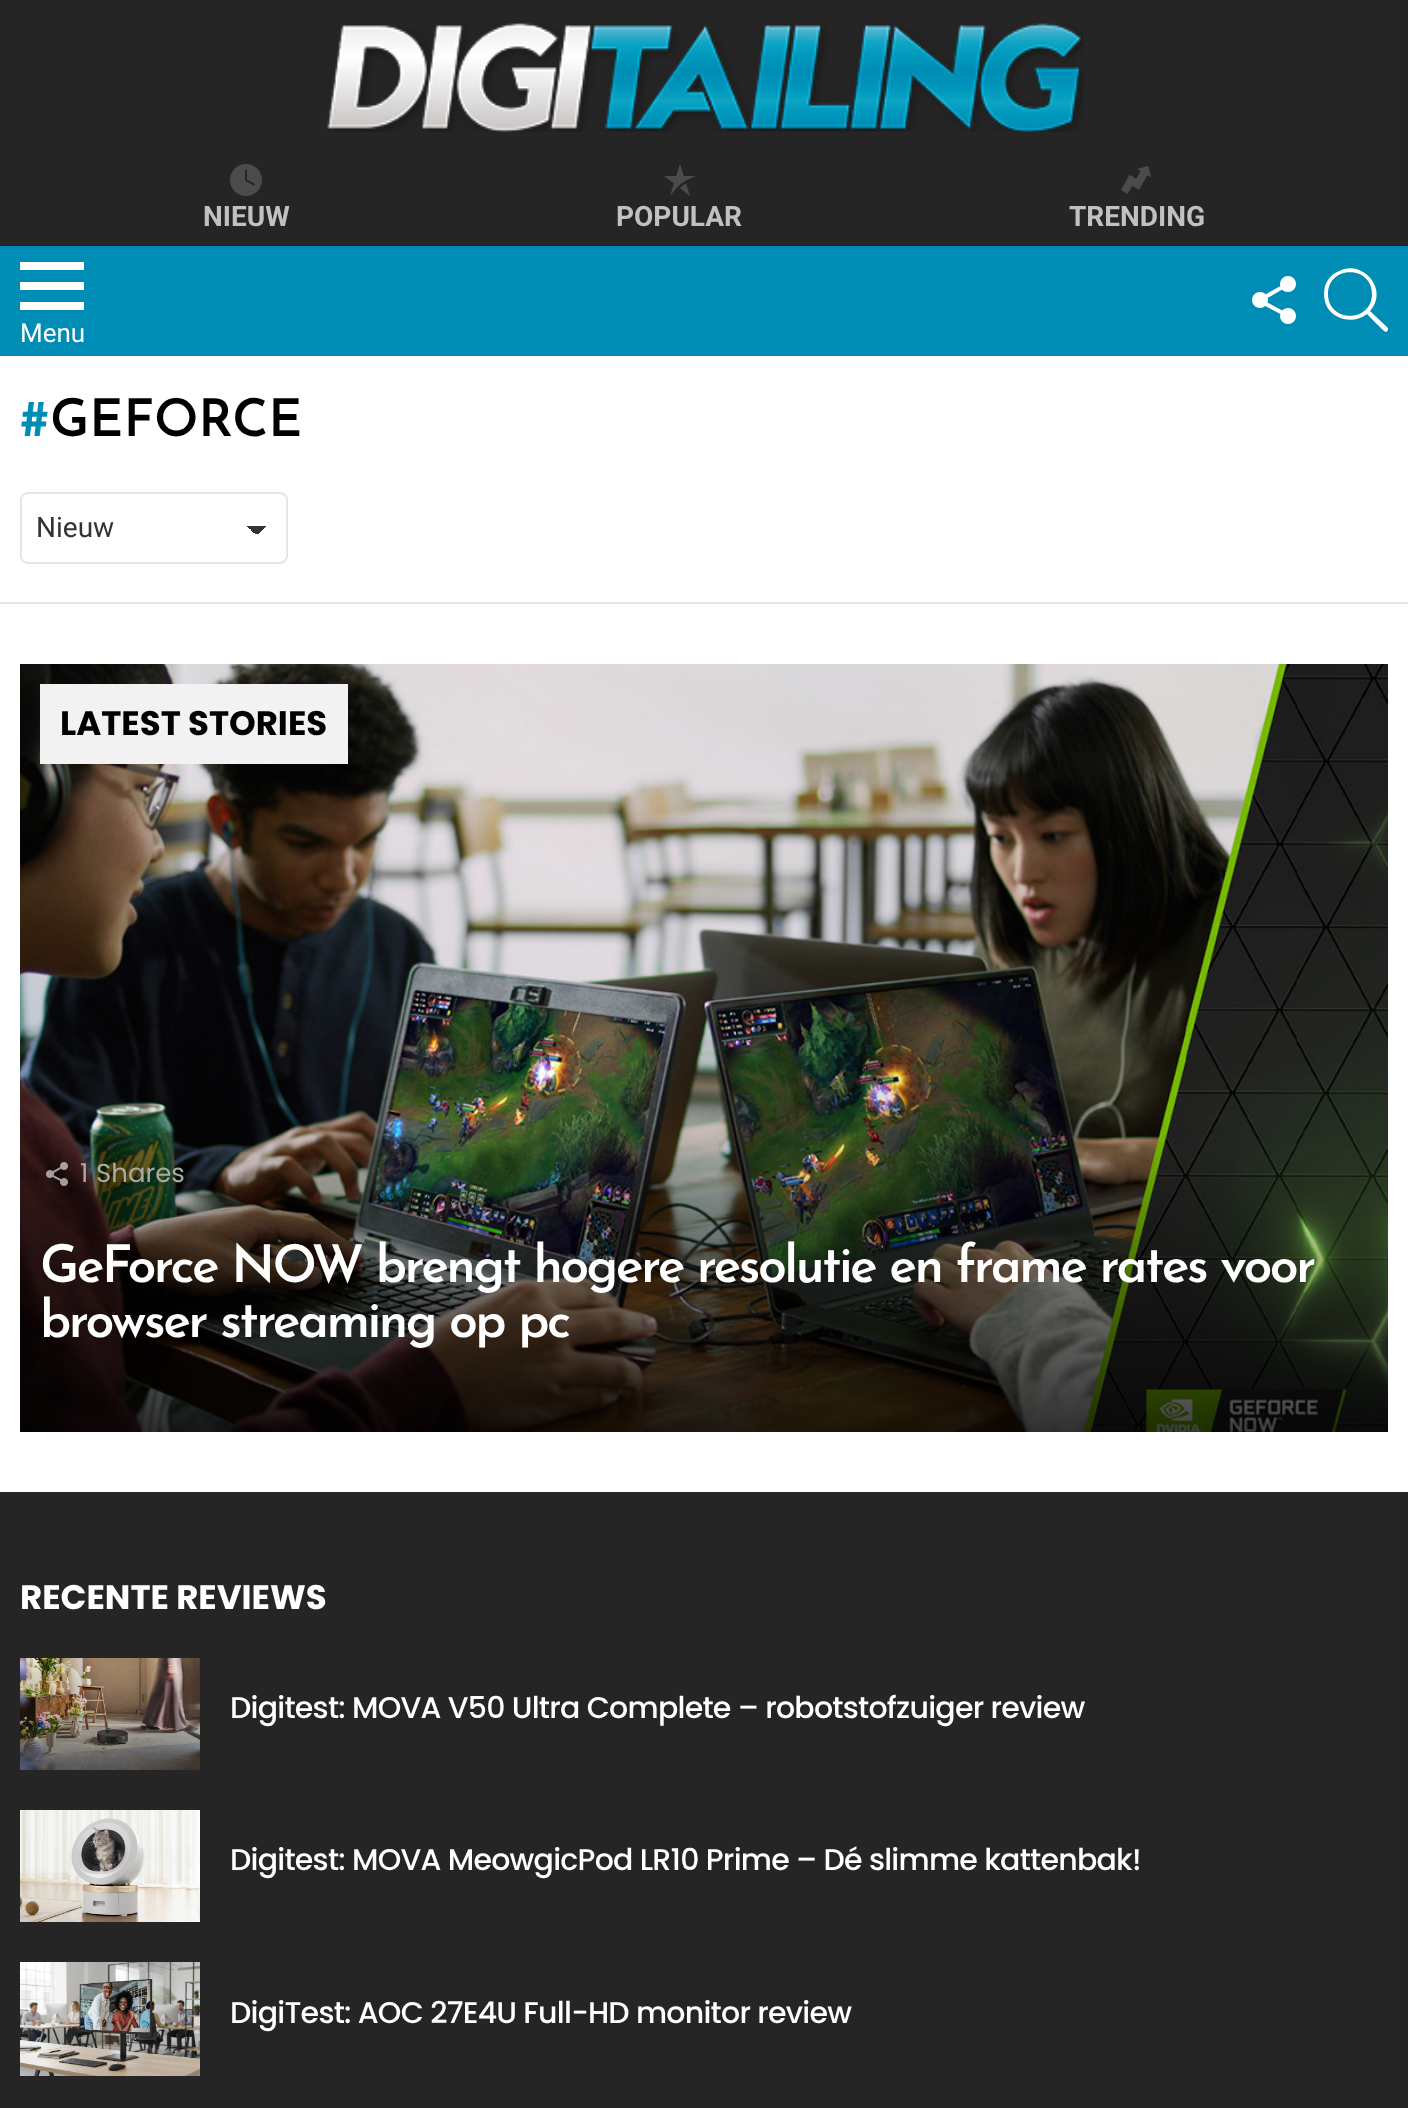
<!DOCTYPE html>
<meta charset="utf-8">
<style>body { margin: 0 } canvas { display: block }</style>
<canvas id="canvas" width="1408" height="2108"></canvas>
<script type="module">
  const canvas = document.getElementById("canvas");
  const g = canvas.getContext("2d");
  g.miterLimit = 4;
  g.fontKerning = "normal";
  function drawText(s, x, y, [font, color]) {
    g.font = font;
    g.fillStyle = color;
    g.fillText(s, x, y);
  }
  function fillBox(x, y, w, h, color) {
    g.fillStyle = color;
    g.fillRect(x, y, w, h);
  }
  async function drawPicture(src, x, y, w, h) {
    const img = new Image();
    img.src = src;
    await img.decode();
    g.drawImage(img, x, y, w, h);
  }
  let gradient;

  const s1 = ["bold 28px Roboto", "#C1C1C1"];
  const s2 = ["26px Roboto", "#FFFFFF"];
  const s3 = ["100 52px Josefin Sans", "#008DB5"];
  const s4 = ["100 52px Josefin Sans", "#000000"];
  const s5 = ["28px Roboto", "#333333"];
  const s6 = ["bold 34px Poppins", "#000000"];
  const s7 = ["26px Poppins", "#B1A6A6"];
  const s8 = ["26px Poppins", "#A9ADA1"];
  const s9 = ["100 52px Josefin Sans", "#FFFFFF"];
  const s10 = ["bold 34px Poppins", "#FFFFFF"];
  const s11 = ["500 30px Poppins", "#FFFFFF"];

  fillBox(0, 0, 1408, 2108, "#252525");
  await drawPicture("pic1.png", 327, 23, 757, 109);
  await drawPicture("pic2.png", 230, 164, 32, 32);
  drawText("NIEUW", 203, 226, s1);
  await drawPicture("pic3.png", 664, 164, 32, 32);
  drawText("POPULAR", 616, 226, s1);
  await drawPicture("pic4.png", 1121, 166, 30, 28);
  drawText("TRENDING", 1069, 226, s1);
  fillBox(0, 246, 1408, 110, "#008DB5");
  g.fillStyle = "#FFFFFF";
  g.beginPath();
  g.moveTo(20, 262);
  g.lineTo(84, 262);
  g.lineTo(84, 270);
  g.lineTo(20, 270);
  g.closePath();
  g.moveTo(20, 282);
  g.lineTo(84, 282);
  g.lineTo(84, 290);
  g.lineTo(20, 290);
  g.closePath();
  g.moveTo(20, 302);
  g.lineTo(84, 302);
  g.lineTo(84, 310);
  g.lineTo(20, 310);
  g.closePath();
  g.fill();
  drawText("Menu", 20, 342, s2);
  await drawPicture("pic5.png", 1252, 276, 44, 48);
  g.beginPath();
  g.moveTo(1388, 328);
  g.lineTo(1370, 311);
  g.bezierCurveTo(1390, 289, 1361, 257, 1337, 272);
  g.bezierCurveTo(1331, 275, 1327, 280, 1325, 286);
  g.bezierCurveTo(1323, 295, 1324, 304, 1330, 311);
  g.bezierCurveTo(1339, 321, 1356, 323, 1367, 314);
  g.bezierCurveTo(1369, 316, 1384, 332, 1386, 332);
  g.bezierCurveTo(1388, 331, 1388, 330, 1388, 328);
  g.closePath();
  g.moveTo(1328, 294);
  g.bezierCurveTo(1328, 265, 1372, 265, 1372, 294);
  g.bezierCurveTo(1372, 323, 1328, 323, 1328, 294);
  g.closePath();
  g.fill();
  fillBox(0, 356, 1408, 246, "#FFFFFF");
  fillBox(0, 602, 1408, 2, "#E6E6E6");
  drawText("#", 20, 436, s3);
  drawText("GEFORCE", 50, 436, s4);
  gradient = g.createLinearGradient(257, 526, 266, 535);
  gradient.addColorStop(0.5, "#333333");
  gradient.addColorStop(0.5, "#FFFFFF");
  g.fillStyle = gradient;
  g.fillRect(256, 526, 10, 8);
  gradient = g.createLinearGradient(247, 535, 256, 526);
  gradient.addColorStop(0.5, "#FFFFFF");
  gradient.addColorStop(0.5, "#333333");
  g.fillStyle = gradient;
  g.fillRect(246, 526, 10, 8);
  g.beginPath();
  g.roundRect(21, 493, 266, 70, 7);
  g.strokeStyle = "#E6E6E6";
  g.lineWidth = 2;
  g.stroke();
  drawText("Nieuw", 36, 537, s5);
  fillBox(0, 604, 1408, 888, "#FFFFFF");
  await drawPicture("pic6.png", 20, 664, 1368, 768);
  fillBox(40, 684, 308, 80, "#F2F2F2");
  drawText("LATEST STORIES", 60, 735, s6);
  await drawPicture("pic7.png", 46, 1162, 22, 24);
  drawText("1", 80, 1182, s7);
  drawText("Shares", 96, 1182, s8);
  g.letterSpacing = "-2.6px";
  drawText("GeForce NOW brengt hogere resolutie en frame rates voor", 40, 1282, s9);
  drawText("browser streaming op pc", 40, 1337, s9);
  g.letterSpacing = "0px";
  drawText("RECENTE REVIEWS", 20, 1609, s10);
  await drawPicture("pic8.png", 20, 1658, 180, 112);
  g.letterSpacing = "-0.75px";
  drawText("Digitest: MOVA V50 Ultra Complete – robotstofzuiger review", 230, 1718, s11);
  await drawPicture("pic9.png", 20, 1810, 180, 112);
  drawText("Digitest: MOVA MeowgicPod LR10 Prime – Dé slimme kattenbak!", 230, 1870, s11);
  await drawPicture("pic10.png", 20, 1962, 180, 114);
  drawText("DigiTest: AOC 27E4U Full-HD monitor review", 230, 2023, s11);
</script>
